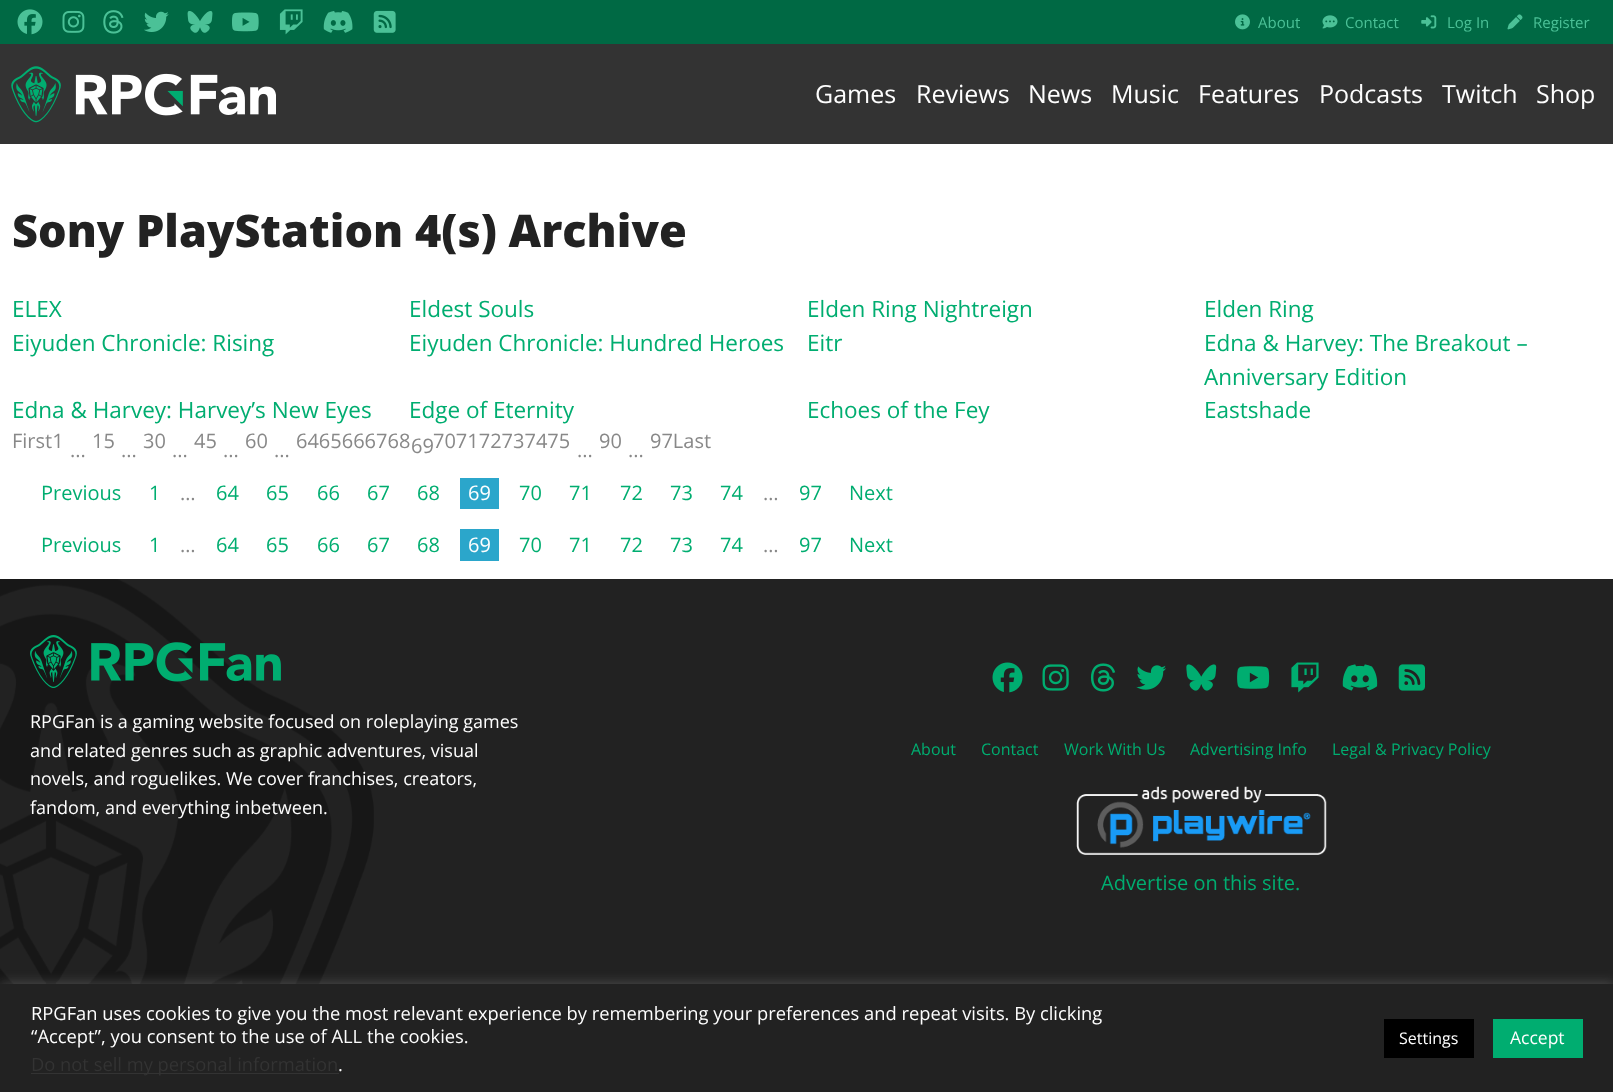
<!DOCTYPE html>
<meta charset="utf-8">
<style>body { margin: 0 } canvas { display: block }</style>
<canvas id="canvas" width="1613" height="1092"></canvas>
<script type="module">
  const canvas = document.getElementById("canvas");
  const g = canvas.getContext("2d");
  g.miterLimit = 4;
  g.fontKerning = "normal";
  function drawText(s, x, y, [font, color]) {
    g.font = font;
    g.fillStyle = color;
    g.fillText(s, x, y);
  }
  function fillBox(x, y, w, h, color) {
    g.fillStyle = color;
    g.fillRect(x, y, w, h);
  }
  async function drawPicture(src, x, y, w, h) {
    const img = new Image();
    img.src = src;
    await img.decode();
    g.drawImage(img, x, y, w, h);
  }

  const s1 = ["15px Open Sans", "#4BC197"];
  const s2 = ["25px Open Sans", "#FEFEFE"];
  const s3 = ["800 45px Open Sans", "#222222"];
  const s4 = ["22.5px Open Sans", "#00AD70"];
  const s5 = ["20px Open Sans", "#888888"];
  const s6 = ["20px Open Sans", "#00AD70"];
  const s7 = ["20px Open Sans", "#FEFEFE"];
  const s8 = ["18px Open Sans", "#FEFEFE"];
  const s9 = ["16px Open Sans", "#00AD70"];
  const s10 = ["18.33px Open Sans", "#FEFEFE"];
  const s11 = ["18.33px Open Sans", "#333333"];
  const s12 = ["16px Open Sans", "#FEFEFE"];
  const s13 = ["17.5px Open Sans", "#FEFEFE"];

  fillBox(0, 0, 1613, 1092, "#FFFFFF");
  fillBox(0, 0, 1613, 44, "#006944");
  await drawPicture("pic1.png", 17, 9, 26, 26);
  await drawPicture("pic2.png", 62, 10, 23, 23);
  await drawPicture("pic3.png", 103, 10, 21, 24);
  await drawPicture("pic4.png", 144, 11, 25, 21);
  await drawPicture("pic5.png", 187, 11, 26, 22);
  await drawPicture("pic6.png", 232, 12, 27, 20);
  await drawPicture("pic7.png", 279, 9, 24, 26);
  await drawPicture("pic8.png", 323, 11, 30, 22);
  await drawPicture("pic9.png", 373, 10, 23, 23);
  await drawPicture("pic10.png", 1235, 14, 15, 16);
  drawText("About", 1258, 28, s1);
  await drawPicture("pic11.png", 1322, 15, 16, 14);
  drawText("Contact", 1345, 28, s1);
  await drawPicture("pic12.png", 1421, 15, 16, 14);
  drawText("Log In", 1447, 28, s1);
  await drawPicture("pic13.png", 1507, 14, 16, 16);
  drawText("Register", 1533, 28, s1);
  fillBox(0, 44, 1613, 100, "#333333");
  await drawPicture("pic14.png", 11, 66, 265, 57);
  drawText("Games", 815, 103, s2);
  drawText("Reviews", 916, 103, s2);
  drawText("News", 1028, 103, s2);
  drawText("Music", 1111, 103, s2);
  drawText("Features", 1198, 103, s2);
  drawText("Podcasts", 1319, 103, s2);
  drawText("Twitch", 1442, 103, s2);
  drawText("Shop", 1536, 103, s2);
  drawText("Sony PlayStation 4(s) Archive", 12, 247, s3);
  drawText("ELEX", 12, 317, s4);
  drawText("Eldest Souls", 409, 317, s4);
  drawText("Elden Ring Nightreign", 807, 317, s4);
  drawText("Elden Ring", 1204, 317, s4);
  drawText("Eiyuden Chronicle: Rising", 12, 351, s4);
  drawText("Eiyuden Chronicle: Hundred Heroes", 409, 351, s4);
  drawText("Eitr", 807, 351, s4);
  drawText("Edna & Harvey: The Breakout –", 1204, 351, s4);
  drawText("Anniversary Edition", 1204, 385, s4);
  drawText("Edna & Harvey: Harvey’s New Eyes", 12, 418, s4);
  drawText("Edge of Eternity", 409, 418, s4);
  drawText("Echoes of the Fey", 807, 418, s4);
  drawText("Eastshade", 1204, 418, s4);
  drawText("First1", 12, 448, s5);
  drawText("15", 92, 448, s5);
  drawText("30", 143, 448, s5);
  drawText("45", 194, 448, s5);
  drawText("60", 245, 448, s5);
  drawText("6465666768", 296, 448, s5);
  drawText("69", 411, 453, s5);
  drawText("707172737475", 433, 448, s5);
  drawText("90", 599, 448, s5);
  drawText("97Last", 650, 448, s5);
  drawText("...", 70, 457, s5);
  drawText("...", 121, 457, s5);
  drawText("...", 172, 457, s5);
  drawText("...", 223, 457, s5);
  drawText("...", 274, 457, s5);
  drawText("...", 577, 457, s5);
  drawText("...", 628, 457, s5);
  drawText("Previous", 41, 500, s6);
  drawText("1", 149, 500, s6);
  drawText("…", 180, 500, s5);
  drawText("64", 216, 500, s6);
  drawText("65", 266, 500, s6);
  drawText("66", 317, 500, s6);
  drawText("67", 367, 500, s6);
  drawText("68", 417, 500, s6);
  fillBox(460, 478, 39, 31, "#2BA6CB");
  drawText("69", 468, 500, s7);
  drawText("70", 519, 500, s6);
  drawText("71", 569, 500, s6);
  drawText("72", 620, 500, s6);
  drawText("73", 670, 500, s6);
  drawText("74", 720, 500, s6);
  drawText("…", 763, 500, s5);
  drawText("97", 799, 500, s6);
  drawText("Next", 849, 500, s6);
  drawText("Previous", 41, 552, s6);
  drawText("1", 149, 552, s6);
  drawText("…", 180, 552, s5);
  drawText("64", 216, 552, s6);
  drawText("65", 266, 552, s6);
  drawText("66", 317, 552, s6);
  drawText("67", 367, 552, s6);
  drawText("68", 417, 552, s6);
  fillBox(460, 529, 39, 32, "#2BA6CB");
  drawText("69", 468, 552, s7);
  drawText("70", 519, 552, s6);
  drawText("71", 569, 552, s6);
  drawText("72", 620, 552, s6);
  drawText("73", 670, 552, s6);
  drawText("74", 720, 552, s6);
  drawText("…", 763, 552, s5);
  drawText("97", 799, 552, s6);
  drawText("Next", 849, 552, s6);
  fillBox(0, 579, 1613, 405, "#222222");
  await drawPicture("pic15.png", 0, 579, 374, 405);
  await drawPicture("pic16.png", 30, 635, 251, 53);
  drawText("RPGFan is a gaming website focused on roleplaying games", 30, 728, s8);
  drawText("and related genres such as graphic adventures, visual", 30, 757, s8);
  drawText("novels, and roguelikes. We cover franchises, creators,", 30, 785, s8);
  drawText("fandom, and everything inbetween.", 30, 814, s8);
  await drawPicture("pic17.png", 992, 662, 31, 31);
  await drawPicture("pic18.png", 1042, 664, 27, 27);
  await drawPicture("pic19.png", 1090, 663, 26, 29);
  await drawPicture("pic20.png", 1136, 665, 30, 25);
  await drawPicture("pic21.png", 1186, 664, 31, 27);
  await drawPicture("pic22.png", 1237, 666, 33, 23);
  await drawPicture("pic23.png", 1291, 662, 28, 31);
  await drawPicture("pic24.png", 1342, 664, 36, 27);
  await drawPicture("pic25.png", 1398, 664, 27, 27);
  drawText("About", 911, 755, s9);
  drawText("Contact", 981, 755, s9);
  drawText("Work With Us", 1064, 755, s9);
  drawText("Advertising Info", 1190, 755, s9);
  drawText("Legal & Privacy Policy", 1332, 755, s9);
  await drawPicture("pic26.png", 1076, 786, 251, 69);
  drawText("Advertise on this site.", 1101, 890, s6);
  g.fillStyle = "rgba(172, 171, 171, 0.3)";
  g.filter = "blur(6px)";
  g.beginPath();
  g.rect(0, 983, 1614, 108);
  g.fill();
  g.filter = "none";
  fillBox(0, 984, 1613, 108, "#222222");
  drawText("RPGFan uses cookies to give you the most relevant experience by remembering your preferences and repeat visits. By clicking", 31, 1020, s10);
  drawText("“Accept”, you consent to the use of ALL the cookies.", 31, 1043, s10);
  fillBox(31, 1073, 308, 1, "#333333");
  drawText("Do not sell my personal information", 31, 1071, s11);
  drawText(".", 338, 1071, s10);
  fillBox(1384, 1019, 90, 39, "#000000");
  drawText("Settings", 1399, 1044, s12);
  fillBox(1493, 1019, 90, 39, "#00AD70");
  drawText("Accept", 1510, 1044, s13);
</script>
